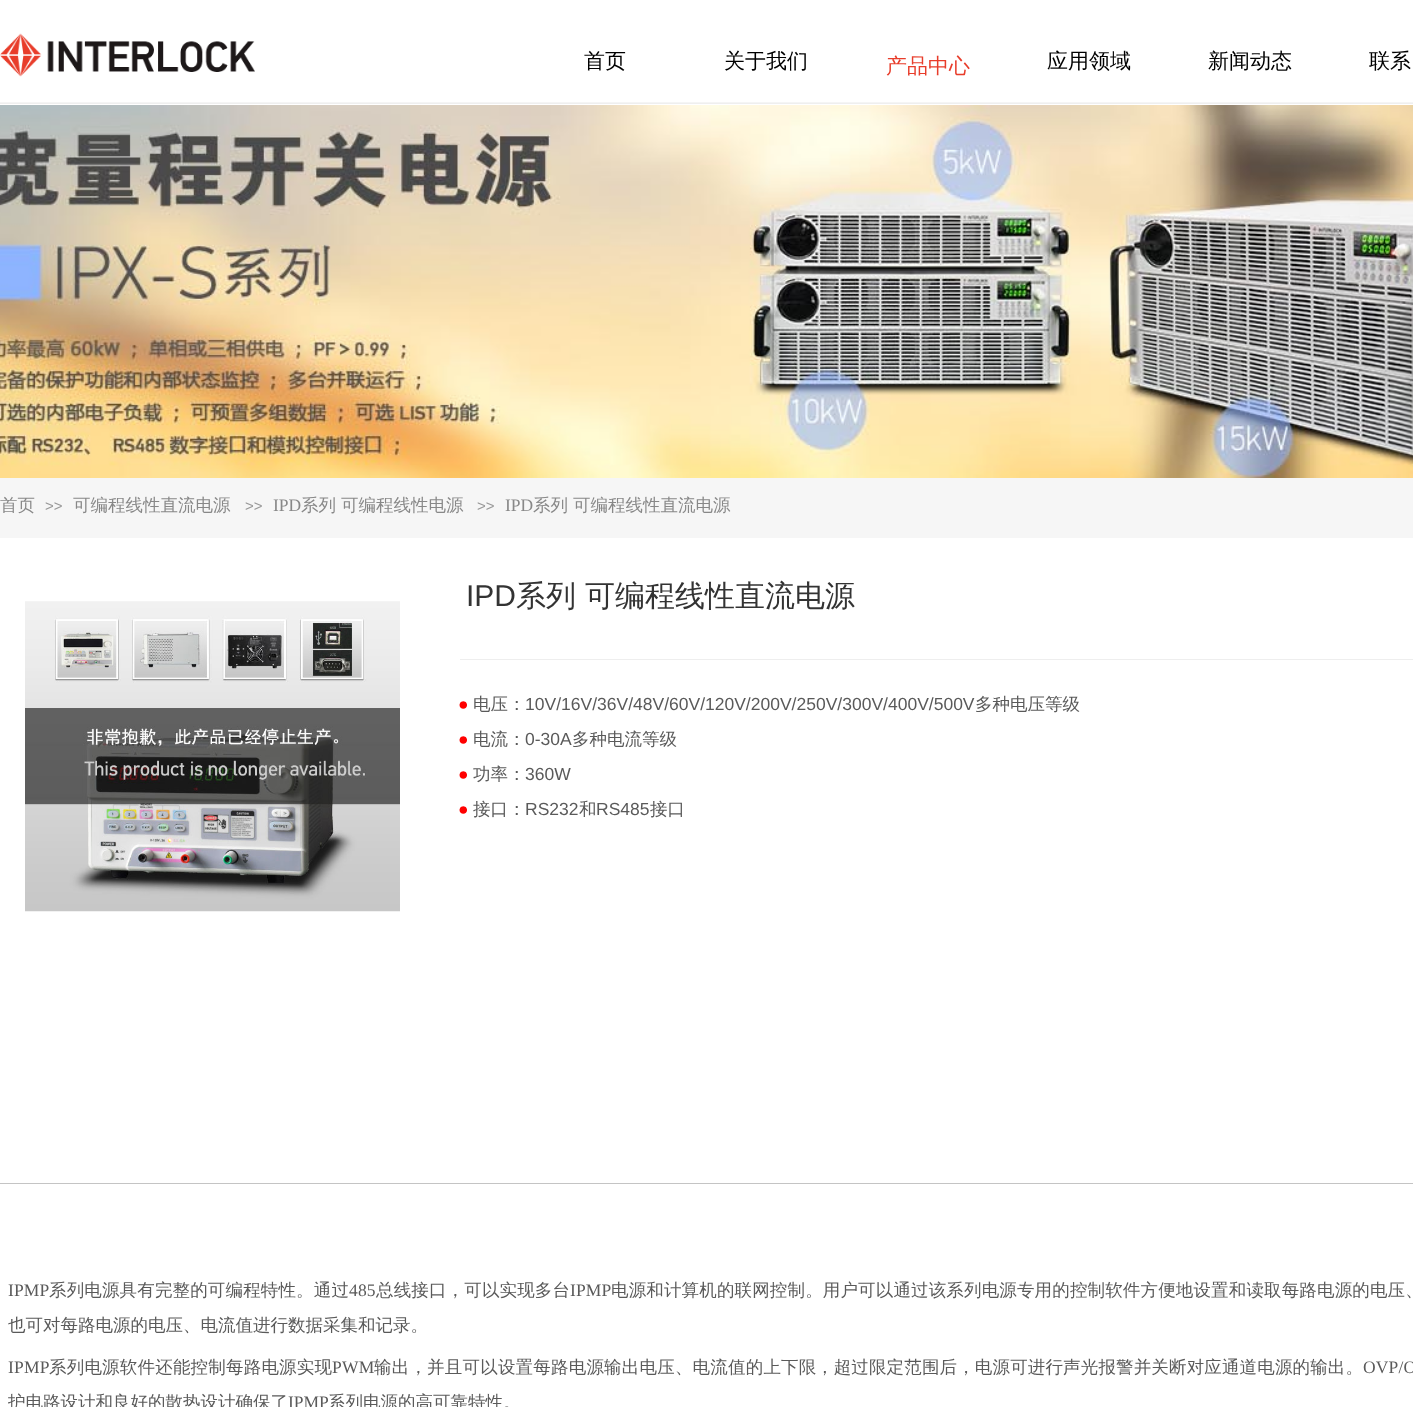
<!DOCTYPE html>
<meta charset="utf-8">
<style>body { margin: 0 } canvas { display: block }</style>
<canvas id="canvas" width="1413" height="1407"></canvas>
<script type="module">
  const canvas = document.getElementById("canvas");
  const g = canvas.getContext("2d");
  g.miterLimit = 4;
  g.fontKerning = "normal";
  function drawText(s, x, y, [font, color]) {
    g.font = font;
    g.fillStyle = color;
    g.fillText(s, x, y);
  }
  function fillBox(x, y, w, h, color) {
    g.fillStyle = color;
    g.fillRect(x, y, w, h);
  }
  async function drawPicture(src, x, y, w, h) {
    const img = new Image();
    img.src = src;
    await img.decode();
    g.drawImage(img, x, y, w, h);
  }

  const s1 = ["500 21px WenQuanYi Zen Hei", "#000000"];
  const s2 = ["500 21px WenQuanYi Zen Hei", "#E83D2B"];
  const s3 = ["500 17.5px WenQuanYi Zen Hei", "#888888"];
  const s4 = ["15px Liberation Sans", "#999999"];
  const s5 = ["17.5px Liberation Serif", "#888888"];
  const s6 = ["30px Liberation Sans", "#333333"];
  const s7 = ["500 30px WenQuanYi Zen Hei", "#333333"];
  const s8 = ["17.5px Liberation Sans", "#FF0000"];
  const s9 = ["500 17.5px WenQuanYi Zen Hei", "#5A5A5A"];
  const s10 = ["17.5px Liberation Sans", "#5A5A5A"];
  const s11 = ["17.5px Liberation Serif", "#5A5A5A"];

  fillBox(0, 0, 1413, 1407, "#FFFFFF");
  await drawPicture("pic1.png", 0, 33, 255, 44);
  drawText("首页", 584, 68, s1);
  drawText("关于我们", 724, 68, s1);
  drawText("产品中心", 886, 73, s2);
  drawText("应用领域", 1047, 68, s1);
  drawText("新闻动态", 1208, 68, s1);
  drawText("联系", 1369, 68, s1);
  await drawPicture("pic2.png", 0, 102, 1413, 2);
  await drawPicture("pic3.png", 0, 105, 1413, 373);
  fillBox(0, 478, 1413, 60, "#F6F6F6");
  drawText("首页", 0, 511, s3);
  drawText(">>", 45, 511, s4);
  drawText("可编程线性直流电源", 73, 511, s3);
  drawText(">>", 245, 511, s4);
  drawText("IPD", 273, 511, s5);
  drawText("系列", 301, 511, s3);
  drawText("可编程线性电源", 341, 511, s3);
  drawText(">>", 477, 511, s4);
  drawText("IPD", 505, 511, s5);
  drawText("系列", 533, 511, s3);
  drawText("可编程线性直流电源", 573, 511, s3);
  drawText("IPD", 466, 606, s6);
  drawText("系列", 516, 606, s7);
  drawText("可编程线性直流电源", 585, 606, s7);
  fillBox(460, 659, 953, 1, "#EEEEEE");
  await drawPicture("pic4.png", 25, 601, 375, 311);
  drawText("●", 458, 710, s8);
  drawText("电压：", 473, 710, s9);
  drawText("10V/16V/36V/48V/60V/120V/200V/250V/300V/400V/500V", 525, 710, s10);
  drawText("多种电压等级", 975, 710, s9);
  drawText("●", 458, 745, s8);
  drawText("电流：", 473, 745, s9);
  drawText("0-30A", 525, 745, s10);
  drawText("多种电流等级", 572, 745, s9);
  drawText("●", 458, 780, s8);
  drawText("功率：", 473, 780, s9);
  drawText("360W", 525, 780, s10);
  drawText("●", 458, 815, s8);
  drawText("接口：", 473, 815, s9);
  drawText("RS232", 525, 815, s10);
  drawText("和", 579, 815, s9);
  drawText("RS485", 596, 815, s10);
  drawText("接口", 650, 815, s9);
  fillBox(0, 1183, 1413, 1, "#C4C4C4");
  g.letterSpacing = "0.15px";
  drawText("IPMP", 8, 1296, s11);
  drawText("系列电源具有完整的可编程特性。通过", 49, 1296, s9);
  drawText("485", 349, 1296, s11);
  drawText("总线接口，可以实现多台", 376, 1296, s9);
  drawText("IPMP", 570, 1296, s11);
  drawText("电源和计算机的联网控制。用户可以通过该系列电源专用的控制软件方便地设置和读取每路电源的电压、", 611, 1296, s9);
  g.letterSpacing = "0px";
  drawText("也可对每路电源的电压、电流值进行数据采集和记录。", 8, 1331, s9);
  g.letterSpacing = "0.2px";
  drawText("IPMP", 8, 1373, s11);
  drawText("系列电源软件还能控制每路电源实现", 49, 1373, s9);
  drawText("PWM", 332, 1373, s11);
  drawText("输出，并且可以设置每路电源输出电压、电流值的上下限", 374, 1373, s9);
  g.letterSpacing = "0.15px";
  drawText("，超过限定范围后，电源可进行声光报警并关断对应通道电源的输出。", 816, 1373, s9);
  drawText("OVP/O", 1363, 1373, s11);
  g.save();
  g.beginPath();
  g.rect(8, 1268, 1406, 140);
  g.clip();
  g.letterSpacing = "0px";
  drawText("护电路设计和良好的散热设计确保了", 8, 1408, s9);
  g.restore();
  g.letterSpacing = "0px";
  drawText("IPMP", 288, 1408, s11);
  drawText("系列电源的高可靠特性。", 328, 1408, s9);
</script>
